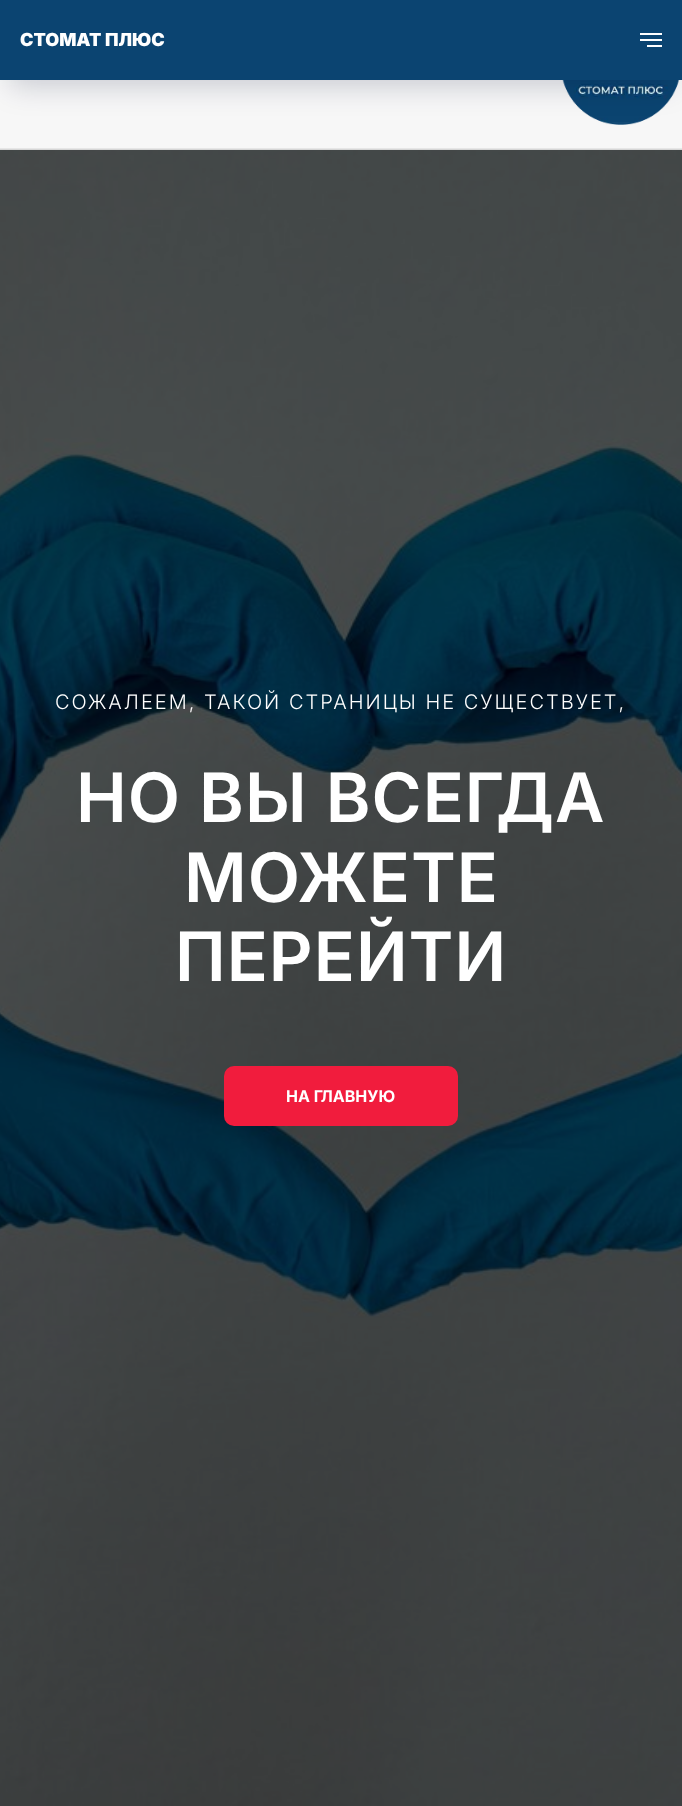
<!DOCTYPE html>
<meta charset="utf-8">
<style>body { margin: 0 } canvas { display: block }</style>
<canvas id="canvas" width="682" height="1806"></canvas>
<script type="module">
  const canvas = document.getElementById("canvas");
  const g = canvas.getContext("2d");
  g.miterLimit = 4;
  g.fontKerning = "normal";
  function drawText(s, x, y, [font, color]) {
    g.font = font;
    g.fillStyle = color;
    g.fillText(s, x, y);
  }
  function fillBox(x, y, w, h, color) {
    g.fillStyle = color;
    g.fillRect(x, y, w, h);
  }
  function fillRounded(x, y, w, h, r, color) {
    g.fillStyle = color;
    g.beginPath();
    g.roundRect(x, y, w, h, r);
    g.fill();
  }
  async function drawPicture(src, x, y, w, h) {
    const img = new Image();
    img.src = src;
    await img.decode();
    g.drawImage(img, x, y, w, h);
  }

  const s1 = ["900 18px Inter", "#FFFFFF"];
  const s2 = ["300 20px Inter", "#FFFFFF"];
  const s3 = ["600 68px Inter", "#FFFFFF"];
  const s4 = ["bold 16px Inter", "#FFFFFF"];

  fillBox(0, 0, 682, 1806, "#FFFFFF");
  fillBox(0, 80, 682, 70, "#F7F7F7");
  await drawPicture("pic2.png", 0, 150, 682, 1656);
  g.save();
  g.beginPath();
  g.rect(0, 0, 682, 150);
  g.clip();
  g.beginPath();
  g.rect(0, 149, 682, 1);
  g.clip();
  g.fillStyle = "rgba(83, 83, 83, 0.3)";
  g.filter = "blur(25px)";
  g.beginPath();
  g.rect(-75, 10, 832, 149);
  g.fill();
  g.filter = "none";
  g.restore();
  g.strokeStyle = "#E6E6E6";
  g.strokeRect(-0.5, 0.5, 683, 148);
  await drawPicture("pic1.png", 562, 80, 118, 45);
  g.fillStyle = "rgba(0, 11, 48, 0.2)";
  g.filter = "blur(15px)";
  g.beginPath();
  g.rect(10, 25, 662, 60);
  g.fill();
  g.filter = "none";
  fillBox(0, 0, 682, 80, "#0B4471");
  drawText("СТОМАТ ПЛЮС", 20, 46, s1);
  fillBox(640, 33, 22, 2, "#FFFFFF");
  fillBox(640, 39, 22, 2, "#FFFFFF");
  fillBox(647, 45, 15, 2, "#FFFFFF");
  g.letterSpacing = "2px";
  drawText("СОЖАЛЕЕМ, ТАКОЙ СТРАНИЦЫ НЕ СУЩЕСТВУЕТ,", 55, 709, s2);
  g.letterSpacing = "1px";
  drawText("НО ВЫ ВСЕГДА", 76, 822, s3);
  drawText("МОЖЕТЕ", 184, 902, s3);
  drawText("ПЕРЕЙТИ", 175, 981, s3);
  fillRounded(224, 1066, 234, 60, 10, "#F11C3D");
  g.letterSpacing = "0px";
  drawText("НА ГЛАВНУЮ", 286, 1102, s4);
</script>
